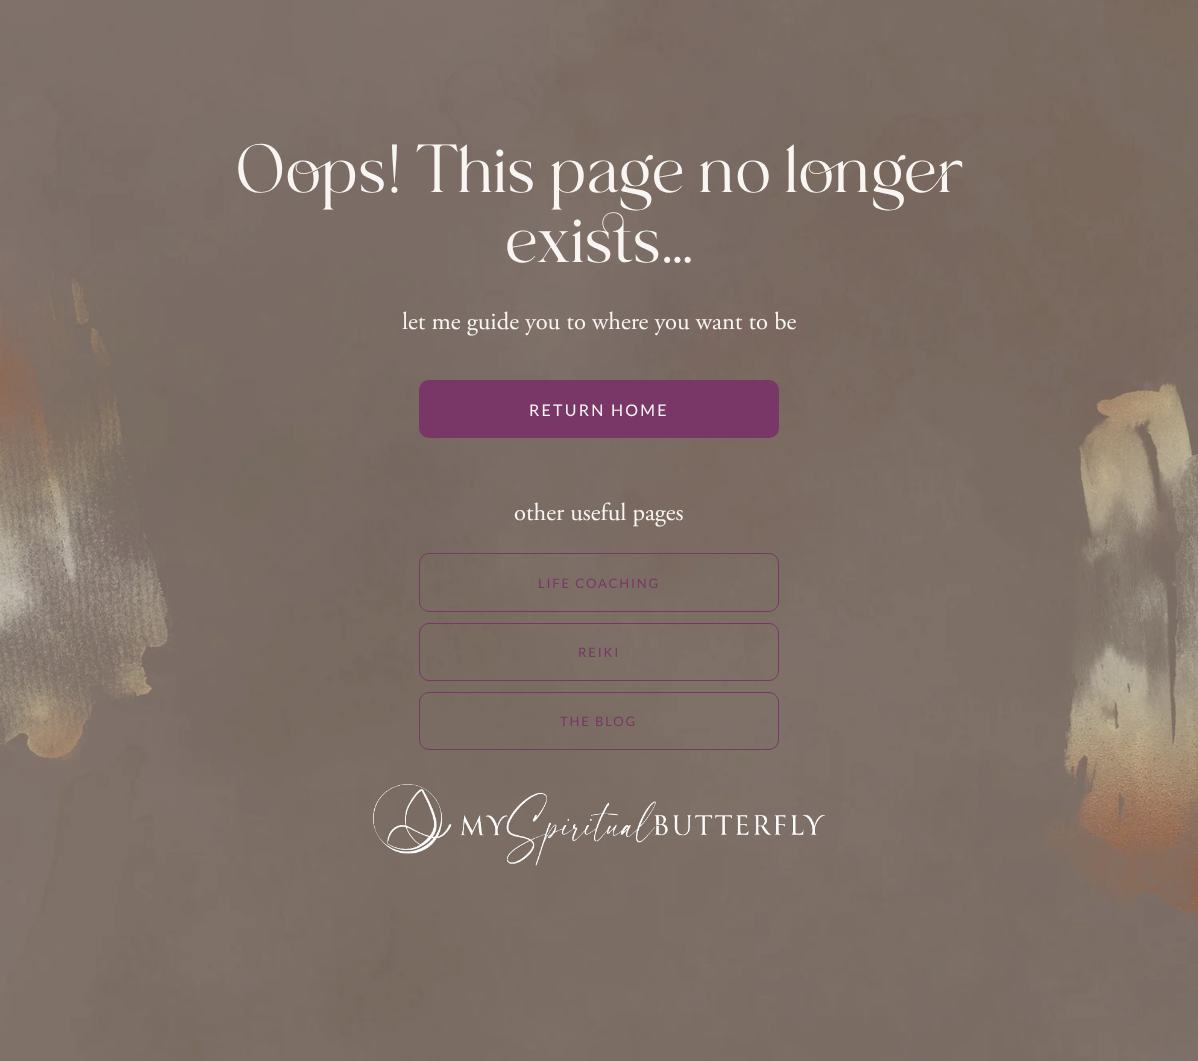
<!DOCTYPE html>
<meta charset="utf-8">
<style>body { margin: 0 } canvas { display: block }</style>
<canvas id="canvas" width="1198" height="1061"></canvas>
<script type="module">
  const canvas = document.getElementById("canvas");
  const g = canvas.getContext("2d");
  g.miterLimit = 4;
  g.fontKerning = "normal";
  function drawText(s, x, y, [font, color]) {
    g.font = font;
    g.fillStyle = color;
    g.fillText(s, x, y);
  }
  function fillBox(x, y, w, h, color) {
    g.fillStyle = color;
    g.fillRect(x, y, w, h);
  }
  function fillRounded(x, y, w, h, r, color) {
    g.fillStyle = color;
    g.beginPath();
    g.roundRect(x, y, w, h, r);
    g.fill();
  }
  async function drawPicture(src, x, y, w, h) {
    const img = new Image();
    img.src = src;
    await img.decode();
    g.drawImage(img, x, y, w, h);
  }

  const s1 = ["67.75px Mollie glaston", "#F8F5F2"];
  const s2 = ["24.6px Adobe Garamond", "#F8F5F2"];
  const s3 = ["16px Lato", "#F8F5F2"];
  const s4 = ["13.1px Lato", "#783766"];

  fillBox(0, 0, 1198, 1061, "#FFFFFF");
  await drawPicture("pic1.png", 0, 0, 1198, 1061);
  drawText("Oops! This page no longer", 235, 192, s1);
  drawText("exists...", 505, 262, s1);
  drawText("let me guide you to where you want to be", 402, 329, s2);
  fillRounded(419, 380, 360, 58, 10, "#783766");
  g.letterSpacing = "2.25px";
  drawText("RETURN HOME", 529, 416, s3);
  g.letterSpacing = "0px";
  drawText("other useful pages", 514, 520, s2);
  g.beginPath();
  g.roundRect(419.5, 553.5, 359, 58, 9.5);
  g.strokeStyle = "#783766";
  g.stroke();
  g.letterSpacing = "1.8px";
  drawText("LIFE COACHING", 538, 588, s4);
  g.beginPath();
  g.roundRect(419.5, 623.5, 359, 57, 9.5);
  g.stroke();
  drawText("REIKI", 578, 657, s4);
  g.beginPath();
  g.roundRect(419.5, 692.5, 359, 57, 9.5);
  g.stroke();
  drawText("THE BLOG", 560, 726, s4);
  await drawPicture("pic2.png", 373, 784, 452, 82);
</script>
